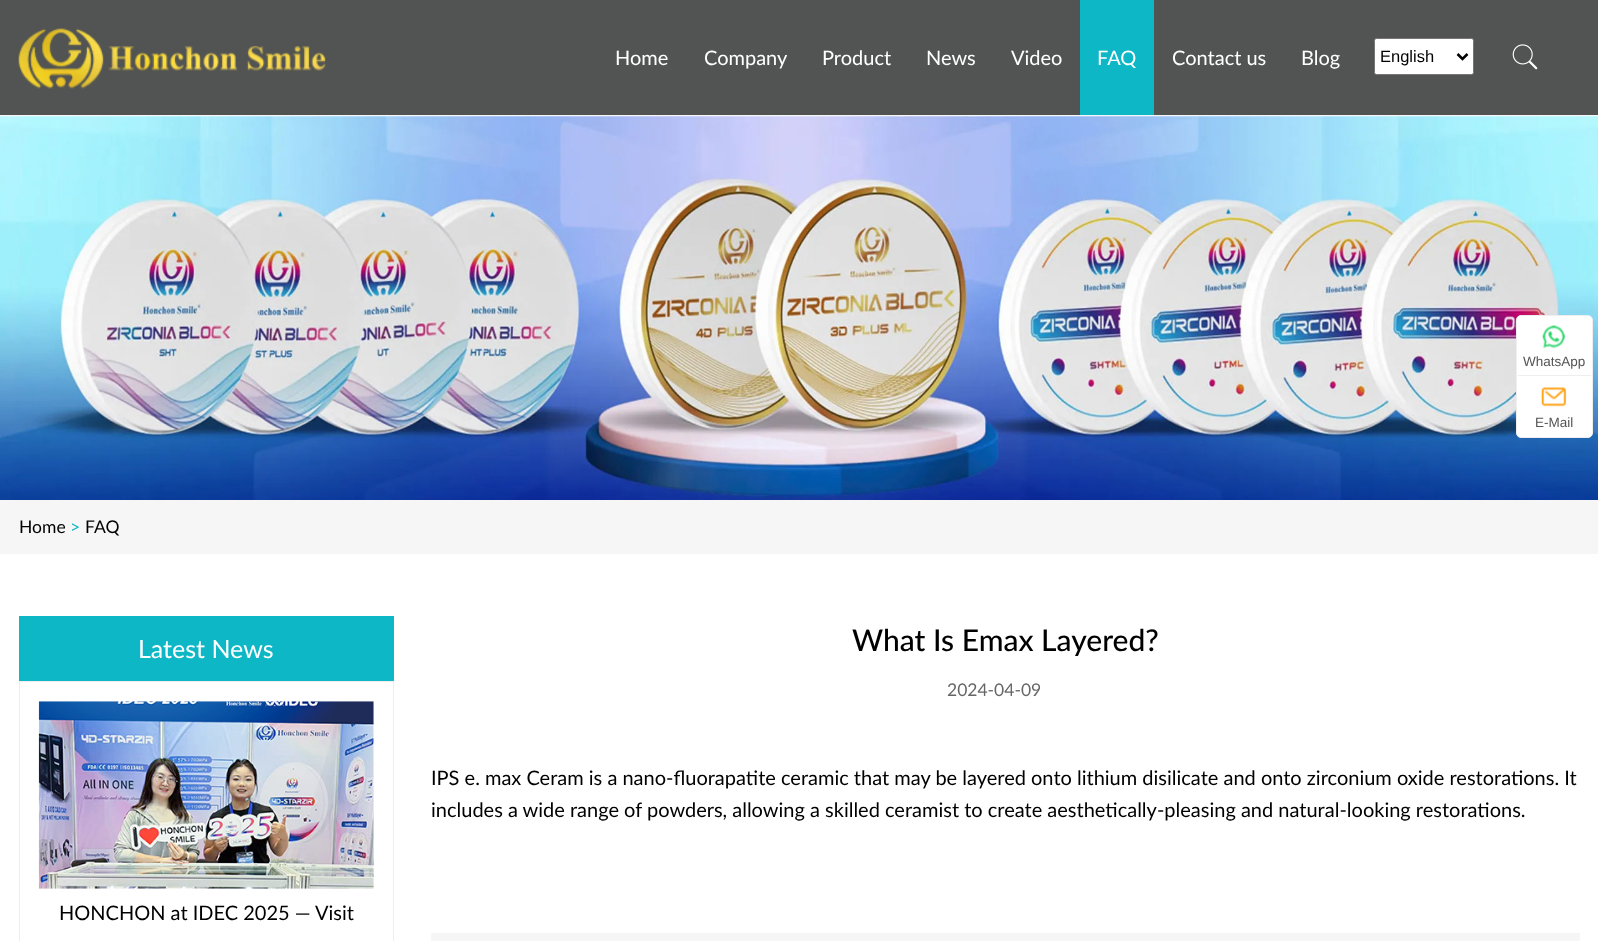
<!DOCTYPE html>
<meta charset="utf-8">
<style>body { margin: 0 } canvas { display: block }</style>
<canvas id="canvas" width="1598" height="941"></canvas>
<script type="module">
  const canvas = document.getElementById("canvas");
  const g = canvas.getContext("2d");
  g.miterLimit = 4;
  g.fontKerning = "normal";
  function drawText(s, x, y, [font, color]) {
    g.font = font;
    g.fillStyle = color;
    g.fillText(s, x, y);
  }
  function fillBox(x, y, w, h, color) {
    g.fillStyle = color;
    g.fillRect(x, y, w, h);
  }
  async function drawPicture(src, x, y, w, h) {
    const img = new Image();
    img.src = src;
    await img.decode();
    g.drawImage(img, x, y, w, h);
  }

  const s1 = ["20px Lato", "#FFFFFF"];
  const s2 = ["16.5px Liberation Sans", "#000000"];
  const s3 = ["13.5px Liberation Sans", "#555555"];
  const s4 = ["17.5px Lato", "#000000"];
  const s5 = ["17.5px Lato", "#0DB7C6"];
  const s6 = ["25px Lato", "#FFFFFF"];
  const s7 = ["20px Lato", "#000000"];
  const s8 = ["500 30px Lato", "#000000"];
  const s9 = ["17.5px Lato", "#666666"];

  fillBox(0, 0, 1598, 941, "#FFFFFF");
  fillBox(0, 115, 1598, 1, "#F6F6F6");
  fillBox(0, 0, 1598, 115, "#525453");
  await drawPicture("pic1.png", 18, 28, 308, 61);
  drawText("Home", 615, 65, s1);
  drawText("Company", 704, 65, s1);
  drawText("Product", 822, 65, s1);
  drawText("News", 926, 65, s1);
  drawText("Video", 1011, 65, s1);
  fillBox(1080, 0, 74, 115, "#0DB7C6");
  drawText("FAQ", 1097, 65, s1);
  drawText("Contact us", 1172, 65, s1);
  drawText("Blog", 1301, 65, s1);
  await drawPicture("pic2.png", 1512, 44, 26, 26);
  g.beginPath();
  g.roundRect(1374.5, 38.5, 99, 36, 2);
  g.fill();
  g.strokeStyle = "#767676";
  g.stroke();
  g.beginPath();
  g.moveTo(1457.5, 54);
  g.lineTo(1462.5, 59);
  g.lineTo(1467.5, 54);
  g.strokeStyle = "#000000";
  g.lineWidth = 2.5;
  g.stroke();
  drawText("English", 1380, 62, s2);
  await drawPicture("pic5.png", 0, 116, 1598, 384);
  g.fillStyle = "#FFFFFF";
  g.beginPath();
  g.roundRect(1516.5, 315.5, 76, 122, 4.5);
  g.fill();
  g.strokeStyle = "#EEEEEE";
  g.lineWidth = 1;
  g.stroke();
  await drawPicture("pic3.png", 1542, 325, 24, 24);
  drawText("WhatsApp", 1523, 366, s3);
  fillBox(1518, 375, 73, 1, "#EEEEEE");
  await drawPicture("pic4.png", 1541, 387, 26, 20);
  drawText("E-Mail", 1535, 427, s3);
  fillBox(0, 500, 1598, 54, "#F6F6F7");
  drawText("Home", 19, 533, s4);
  drawText(">", 70, 533, s5);
  drawText("FAQ", 85, 533, s4);
  fillBox(19, 616, 375, 65, "#0DB7C6");
  drawText("Latest News", 138, 658, s6);
  g.strokeRect(19.5, 681.5, 374, 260);
  await drawPicture("pic6.png", 38, 701, 336, 188);
  drawText("HONCHON at IDEC 2025 — Visit", 59, 920, s7);
  drawText("What Is Emax Layered?", 852, 651, s8);
  drawText("2024-04-09", 947, 696, s9);
  drawText("IPS e. max Ceram is a nano-fluorapatite ceramic that may be layered onto lithium disilicate and onto zirconium oxide restorations. It", 431, 785, s7);
  drawText("includes a wide range of powders, allowing a skilled ceramist to create aesthetically-pleasing and natural-looking restorations.", 431, 817, s7);
  fillBox(431, 933, 1149, 8, "#F6F6F7");
</script>
